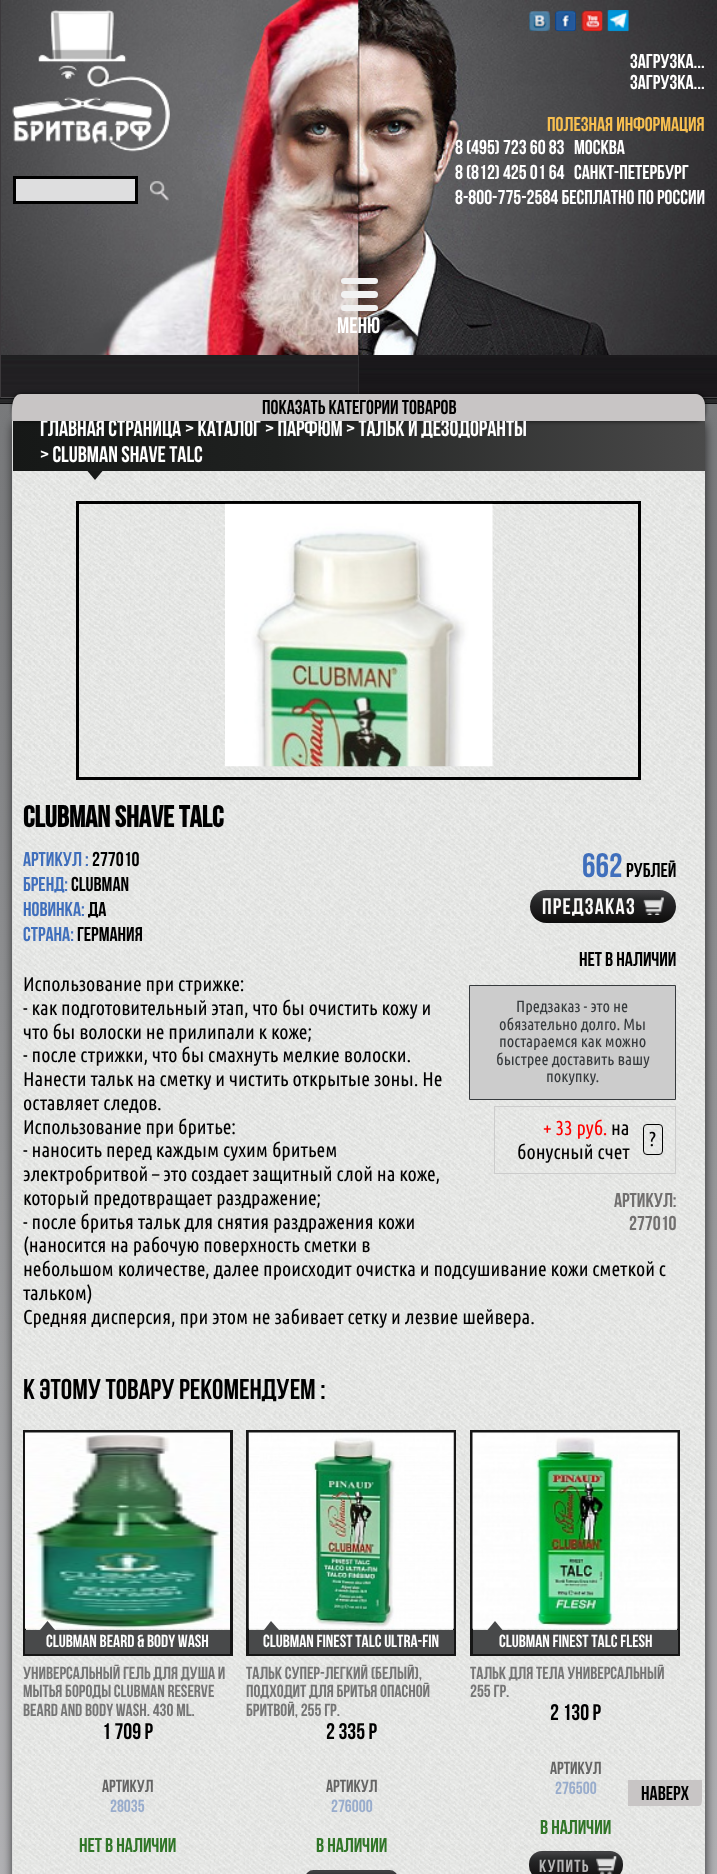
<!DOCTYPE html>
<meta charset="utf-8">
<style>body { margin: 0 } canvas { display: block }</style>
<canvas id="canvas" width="717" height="1874"></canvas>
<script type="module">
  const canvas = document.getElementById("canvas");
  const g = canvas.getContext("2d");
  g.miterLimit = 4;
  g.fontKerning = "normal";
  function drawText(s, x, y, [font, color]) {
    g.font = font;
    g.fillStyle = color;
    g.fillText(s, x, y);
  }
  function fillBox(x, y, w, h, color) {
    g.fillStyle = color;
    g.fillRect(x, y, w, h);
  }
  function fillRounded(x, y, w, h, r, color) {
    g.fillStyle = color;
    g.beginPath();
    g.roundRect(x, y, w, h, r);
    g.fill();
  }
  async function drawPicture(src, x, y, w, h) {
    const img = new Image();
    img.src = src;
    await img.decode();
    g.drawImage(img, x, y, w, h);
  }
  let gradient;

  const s1 = ["20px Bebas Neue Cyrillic", "#FFFFFF"];
  const s2 = ["20px Bebas Neue Cyrillic", "#F7BF50"];
  const s3 = ["22.5px Bebas Neue Cyrillic", "#FFFFFF"];
  const s4 = ["20px Bebas Neue Cyrillic", "#000000"];
  const s5 = ["bold 30px Bebas Neue Cyrillic", "#000000"];
  const s6 = ["20px Bebas Neue Cyrillic", "#406FBC"];
  const s7 = ["34px Bebas Neue Cyrillic", "#406FBC"];
  const s8 = ["22.5px Bebas Neue Cyrillic", "#FAF9F8"];
  const s9 = ["16.25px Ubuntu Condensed", "#363A3D"];
  const s10 = ["20px Ubuntu Condensed", "#FF0000"];
  const s11 = ["20px Ubuntu Condensed", "#000000"];
  const s12 = ["20px Bebas Neue Cyrillic", "#716F6F"];
  const s13 = ["28.75px Bebas Neue Cyrillic", "#000000"];
  const s14 = ["17.5px Bebas Neue Cyrillic", "#FFFFFF"];
  const s15 = ["17.5px Bebas Neue Cyrillic", "#757575"];
  const s16 = ["22.5px Bebas Neue Cyrillic", "#000000"];
  const s17 = ["17.5px Bebas Neue Cyrillic", "#656565"];
  const s18 = ["17.5px Bebas Neue Cyrillic", "#98ACCC"];
  const s19 = ["20px Bebas Neue Cyrillic", "#307628"];
  const s20 = ["17.5px Bebas Neue Cyrillic", "#B7B7B7"];

  fillBox(0, 0, 717, 1874, "#FFFFFF");
  gradient = g.createLinearGradient(359, 0, 359, 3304);
  gradient.addColorStop(0, "#6B6D6E");
  gradient.addColorStop(0.16, "#7C7D7F");
  gradient.addColorStop(0.43, "#A1A2A4");
  gradient.addColorStop(0.57, "#B2B2B5");
  gradient.addColorStop(0.7, "#BCBDBF");
  gradient.addColorStop(0.9, "#D4D5D7");
  gradient.addColorStop(1, "#D5D6D8");
  g.fillStyle = gradient;
  g.fillRect(0, 355, 717, 1519);
  await drawPicture("pic1.png", 1, 0, 716, 355);
  fillBox(0, 0, 1, 398, "#3C393C");
  await drawPicture("pic2.png", 12, 10, 158, 142);
  g.fillStyle = "#DEDEDF";
  g.beginPath();
  g.rect(14.5, 177.5, 122, 25);
  g.fill();
  g.strokeStyle = "#000000";
  g.lineWidth = 3;
  g.stroke();
  await drawPicture("pic3.png", 150, 181, 19, 20);
  await drawPicture("pic4.png", 529, 11, 21, 21);
  await drawPicture("pic5.png", 555, 10, 21, 22);
  await drawPicture("pic6.png", 581, 10, 22, 22);
  await drawPicture("pic7.png", 607, 10, 22, 22);
  drawText("ЗАГРУЗКА...", 630, 68, s1);
  drawText("ЗАГРУЗКА...", 630, 89, s1);
  drawText("ПОЛЕЗНАЯ ИНФОРМАЦИЯ", 547, 131, s2);
  drawText("8 (495) 723 60 83", 455, 154, s1);
  drawText("МОСКВА", 574, 154, s1);
  drawText("8 (812) 425 01 64", 455, 179, s1);
  drawText("САНКТ-ПЕТЕРБУРГ", 574, 179, s1);
  drawText("8-800-775-2584 БЕСПЛАТНО ПО РОССИИ", 455, 204, s1);
  await drawPicture("pic8.png", 1, 355, 358, 43);
  await drawPicture("pic9.png", 358, 355, 359, 43);
  fillRounded(341, 291, 37, 7, 3.5, "#F2F2F2");
  fillRounded(341, 278, 37, 6, 3, "#F2F2F2");
  fillRounded(341, 305, 37, 6, 3, "#F2F2F2");
  drawText("МЕНЮ", 337, 333, s3);
  fillBox(0, 398, 717, 1, "#101012");
  fillBox(0, 403, 717, 1, "#101012");
  fillBox(0, 400, 717, 3, "#2A2A2C");
  fillBox(0, 399, 717, 1, "#262728");
  fillBox(0, 401, 717, 1, "#262728");
  g.fillStyle = "#222223";
  g.filter = "blur(5.5px)";
  g.beginPath();
  g.roundRect(13, 419, 692, 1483, 11);
  g.fill();
  g.filter = "none";
  g.fillStyle = "#DDDEDC";
  g.beginPath();
  g.moveTo(12, 411);
  g.lineTo(705, 411);
  g.lineTo(705, 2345);
  g.bezierCurveTo(705, 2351, 698, 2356, 689, 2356);
  g.lineTo(12, 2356);
  g.closePath();
  g.fill();
  await drawPicture("pic10.png", 12, 421, 693, 1453);
  gradient = g.createLinearGradient(13, 441, 705, 441);
  gradient.addColorStop(0, "#161817");
  gradient.addColorStop(0.38, "#1F2120");
  gradient.addColorStop(0.93, "#454545");
  gradient.addColorStop(1, "#4A4A4A");
  g.fillStyle = gradient;
  g.fillRect(13, 421, 692, 50);
  g.fillStyle = "rgba(0, 0, 0, 0.75)";
  g.filter = "blur(2px)";
  g.beginPath();
  g.roundRect(13, 394, 692, 27, 9);
  g.fill();
  g.filter = "none";
  drawText("Главная страница", 40, 436, s3);
  drawText("> Каталог", 185, 436, s3);
  drawText("> парфюм", 265, 436, s3);
  drawText("> тальк и дезодоранты", 346, 436, s3);
  g.fillStyle = "#C8C5C5";
  g.beginPath();
  g.moveTo(21, 394);
  g.lineTo(696, 394);
  g.bezierCurveTo(701, 394, 705, 399, 705, 405);
  g.lineTo(705, 421);
  g.lineTo(12, 421);
  g.bezierCurveTo(12, 414, 10, 394, 21, 394);
  g.closePath();
  g.fill();
  drawText("Показать категории товаров", 262, 414, s4);
  drawText("> Clubman Shave Talc", 40, 462, s3);
  g.fillStyle = "#161817";
  g.beginPath();
  g.moveTo(87.5, 471);
  g.lineTo(102.5, 471);
  g.lineTo(95, 480);
  g.closePath();
  g.fill();
  g.strokeRect(77.5, 502.5, 562, 276);
  await drawPicture("pic11.png", 225, 503, 268, 264);
  drawText("Clubman Shave Talc", 23, 827, s5);
  drawText("Артикул :", 23, 866, s6);
  drawText("277010", 92, 866, s4);
  drawText("Бренд:", 23, 891, s6);
  drawText("Clubman", 71, 891, s4);
  drawText("Новинка:", 23, 916, s6);
  drawText("да", 88, 916, s4);
  drawText("Страна:", 23, 941, s6);
  drawText("Германия", 77, 941, s4);
  drawText("662", 582, 877, s7);
  drawText("рублей", 626, 877, s4);
  gradient = g.createLinearGradient(603, 890, 603, 923);
  gradient.addColorStop(0, "#3D3E40");
  gradient.addColorStop(0.05, "#414143");
  gradient.addColorStop(0.26, "#2B2C2D");
  gradient.addColorStop(0.37, "#242425");
  gradient.addColorStop(0.63, "#1C1B1C");
  gradient.addColorStop(0.89, "#11100F");
  gradient.addColorStop(1, "#0D0D0E");
  g.fillStyle = gradient;
  g.beginPath();
  g.roundRect(530, 890, 146, 33, 16.5);
  g.fill();
  g.letterSpacing = "1.25px";
  drawText("ПРЕДЗАКАЗ", 542, 914, s8);
  await drawPicture("pic12.png", 643, 897, 21, 18);
  g.letterSpacing = "0px";
  drawText("Нет в наличии", 579, 966, s4);
  g.fillStyle = "#CCCCCC";
  g.beginPath();
  g.rect(469.5, 985.5, 206, 114);
  g.fill();
  g.strokeStyle = "#363A3D";
  g.lineWidth = 1;
  g.stroke();
  drawText("Предзаказ - это не", 516, 1012, s9);
  drawText("обязательно долго. Мы", 499, 1030, s9);
  drawText("постараемся как можно", 499, 1047, s9);
  drawText("быстрее доставить вашу", 496, 1065, s9);
  drawText("покупку.", 546, 1082, s9);
  g.strokeStyle = "#CCCCCC";
  g.strokeRect(494.5, 1106.5, 181, 67);
  drawText("+ 33 руб.", 543, 1135, s10);
  drawText("на", 611, 1135, s11);
  drawText("бонусный счет", 517, 1159, s11);
  g.beginPath();
  g.roundRect(643.5, 1124.5, 19, 30, 3.5);
  g.strokeStyle = "#000000";
  g.stroke();
  drawText("?", 649, 1146, s11);
  drawText("Артикул:", 614, 1207, s12);
  drawText("277010", 629, 1230, s12);
  drawText("Использование при стрижке:", 23, 991, s11);
  drawText("- как подготовительный этап, что бы очистить кожу и", 23, 1015, s11);
  drawText("что бы волоски не прилипали к коже;", 23, 1039, s11);
  drawText("- после стрижки, что бы смахнуть мелкие волоски.", 23, 1062, s11);
  drawText("Нанести тальк на сметку и чистить открытые зоны. Не", 23, 1086, s11);
  drawText("оставляет следов.", 23, 1110, s11);
  drawText("Использование при бритье:", 23, 1134, s11);
  drawText("- наносить перед каждым сухим бритьем", 23, 1157, s11);
  drawText("электробритвой – это создает защитный слой на коже,", 23, 1181, s11);
  drawText("который предотвращает раздражение;", 23, 1205, s11);
  drawText("- после бритья тальк для снятия раздражения кожи", 23, 1229, s11);
  drawText("(наносится на рабочую поверхность сметки в", 23, 1252, s11);
  drawText("небольшом количестве, далее происходит очистка и подсушивание кожи сметкой с", 23, 1276, s11);
  drawText("тальком)", 23, 1300, s11);
  drawText("Средняя дисперсия, при этом не забивает сетку и лезвие шейвера.", 23, 1324, s11);
  drawText("К ЭТОМУ ТОВАРУ РЕКОМЕНДУЕМ :", 23, 1399, s13);
  g.strokeStyle = "#161616";
  g.lineWidth = 3;
  g.strokeRect(24.5, 1431.5, 207, 223);
  await drawPicture("pic13.png", 25, 1432, 205, 197);
  fillBox(25, 1630, 205, 24, "#48494A");
  g.beginPath();
  g.moveTo(55, 1630);
  g.lineTo(40, 1630);
  g.lineTo(47.5, 1621);
  g.closePath();
  g.fill();
  drawText("Clubman Beard & Body Wash", 46, 1647, s14);
  drawText("Универсальный гель для душа и", 23, 1679, s15);
  drawText("мытья бороды Clubman Reserve", 23, 1697, s15);
  drawText("Beard and Body Wash. 430 ml.", 23, 1716, s15);
  drawText("1 709 р", 102, 1739, s16);
  drawText("Артикул", 102, 1792, s17);
  drawText("28035", 110, 1812, s18);
  drawText("Нет в наличии", 79, 1852, s19);
  g.strokeRect(247.5, 1431.5, 207, 223);
  await drawPicture("pic14.png", 248, 1432, 206, 197);
  fillBox(249, 1630, 205, 24, "#48494A");
  g.beginPath();
  g.moveTo(279, 1630);
  g.lineTo(264, 1630);
  g.lineTo(271, 1621);
  g.closePath();
  g.fill();
  drawText("Clubman Finest Talc ULTRA-FIN", 263, 1647, s14);
  drawText("Тальк супер-легкий (белый),", 246, 1679, s15);
  drawText("подходит для бритья опасной", 246, 1697, s15);
  drawText("бритвой, 255 гр.", 246, 1716, s15);
  drawText("2 335 р", 326, 1739, s16);
  drawText("Артикул", 326, 1792, s17);
  drawText("276000", 331, 1812, s18);
  drawText("В наличии", 316, 1852, s19);
  gradient = g.createLinearGradient(351, 1870, 351, 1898);
  gradient.addColorStop(0, "#3D3E40");
  gradient.addColorStop(0.05, "#414143");
  gradient.addColorStop(0.26, "#2B2C2D");
  gradient.addColorStop(0.37, "#242425");
  gradient.addColorStop(0.63, "#1C1B1C");
  gradient.addColorStop(0.89, "#11100F");
  gradient.addColorStop(1, "#0D0D0E");
  g.fillStyle = gradient;
  g.beginPath();
  g.roundRect(305, 1870, 93, 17, 13);
  g.fill();
  g.strokeRect(471.5, 1431.5, 207, 223);
  await drawPicture("pic15.png", 472, 1432, 206, 197);
  fillBox(473, 1630, 205, 24, "#48494A");
  g.beginPath();
  g.moveTo(502.5, 1630);
  g.lineTo(487.5, 1630);
  g.lineTo(495, 1621);
  g.closePath();
  g.fill();
  drawText("Clubman Finest Talc FLESH", 499, 1647, s14);
  drawText("Тальк для тела универсальный", 470, 1679, s15);
  drawText("255 гр.", 470, 1697, s15);
  drawText("2 130 р", 550, 1720, s16);
  drawText("Артикул", 550, 1774, s17);
  drawText("276500", 555, 1794, s18);
  drawText("В наличии", 540, 1834, s19);
  gradient = g.createLinearGradient(576, 1851, 576, 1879);
  gradient.addColorStop(0, "#3D3E40");
  gradient.addColorStop(0.05, "#414143");
  gradient.addColorStop(0.26, "#2B2C2D");
  gradient.addColorStop(0.37, "#242425");
  gradient.addColorStop(0.63, "#1C1B1C");
  gradient.addColorStop(0.89, "#11100F");
  gradient.addColorStop(1, "#0D0D0E");
  g.fillStyle = gradient;
  g.beginPath();
  g.roundRect(529, 1851, 94, 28, 13);
  g.fill();
  g.letterSpacing = "1.25px";
  drawText("КУПИТЬ", 539, 1872, s20);
  await drawPicture("pic16.png", 596, 1856, 21, 18);
  g.fillStyle = "#C8C5C5";
  g.beginPath();
  g.moveTo(628, 1780);
  g.lineTo(702, 1780);
  g.lineTo(702, 1800);
  g.bezierCurveTo(702, 1803, 701, 1806, 699, 1806);
  g.lineTo(628, 1806);
  g.closePath();
  g.fill();
  g.letterSpacing = "0px";
  drawText("НАВЕРХ", 641, 1800, s4);
</script>
